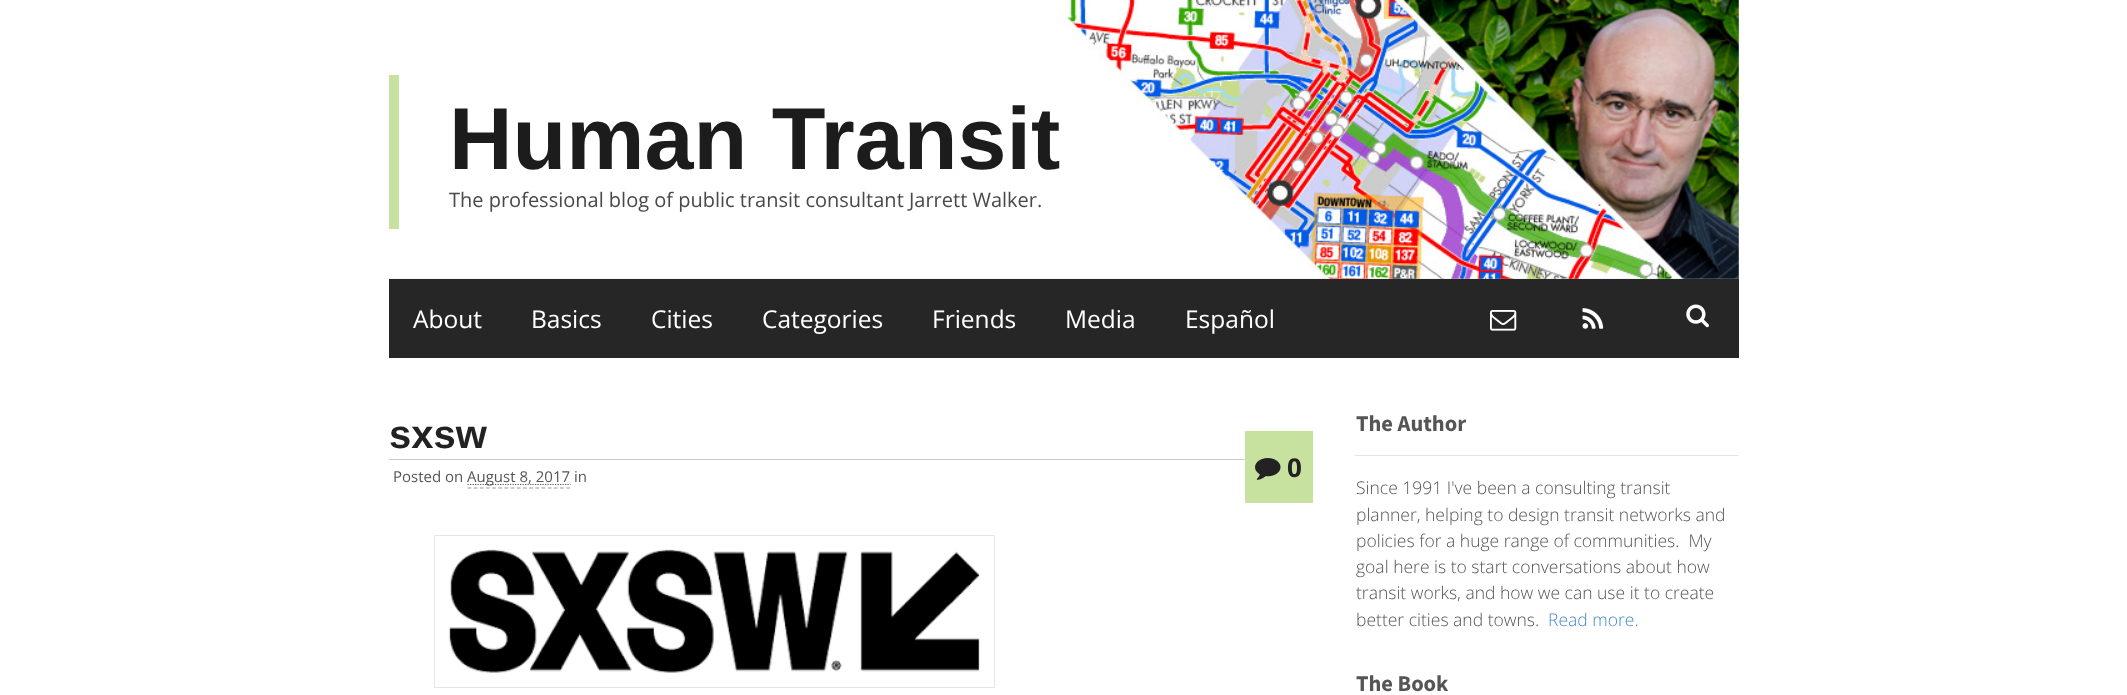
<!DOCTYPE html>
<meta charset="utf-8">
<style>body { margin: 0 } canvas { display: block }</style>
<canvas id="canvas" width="2127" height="695"></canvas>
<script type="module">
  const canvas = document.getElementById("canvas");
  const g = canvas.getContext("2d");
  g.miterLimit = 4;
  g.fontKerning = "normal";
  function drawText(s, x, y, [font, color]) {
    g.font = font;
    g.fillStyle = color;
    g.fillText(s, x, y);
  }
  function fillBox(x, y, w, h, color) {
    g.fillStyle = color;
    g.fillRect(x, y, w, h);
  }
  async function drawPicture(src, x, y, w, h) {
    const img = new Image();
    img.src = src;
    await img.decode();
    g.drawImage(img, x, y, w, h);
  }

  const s1 = ["bold 88px Liberation Sans", "#1C1C1C"];
  const s2 = ["20px Open Sans", "#494949"];
  const s3 = ["24.5px Open Sans", "#FFFFFF"];
  const s4 = ["bold 40px Liberation Sans", "#222222"];
  const s5 = ["15px Open Sans", "#555555"];
  const s6 = ["bold 26px Open Sans", "#222222"];
  const s7 = ["bold 22.5px Source Sans Pro", "#555555"];
  const s8 = ["300 17.5px Open Sans", "#555555"];
  const s9 = ["300 17.5px Open Sans", "#428BCA"];

  fillBox(0, 0, 2127, 695, "#FFFFFF");
  fillBox(389, 0, 1350, 279, "#C5D2DB");
  await drawPicture("pic1.png", 389, 0, 1350, 279);
  fillBox(389, 75, 10, 154, "#C7E19E");
  drawText("Human Transit", 449, 169, s1);
  drawText("The professional blog of public transit consultant Jarrett Walker.", 449, 207, s2);
  fillBox(389, 279, 1350, 79, "#262626");
  drawText("About", 413, 328, s3);
  drawText("Basics", 531, 328, s3);
  drawText("Cities", 651, 328, s3);
  drawText("Categories", 762, 328, s3);
  drawText("Friends", 932, 328, s3);
  drawText("Media", 1065, 328, s3);
  drawText("Español", 1185, 328, s3);
  await drawPicture("pic2.png", 1490, 310, 27, 21);
  await drawPicture("pic3.png", 1582, 308, 22, 21);
  await drawPicture("pic4.png", 1686, 304, 23, 24);
  fillBox(389, 459, 856, 1, "#CCCCCC");
  drawText("sxsw", 389, 448, s4);
  drawText("Posted on", 393, 482, s5);
  g.beginPath();
  g.moveTo(467.5, 484.5);
  g.lineTo(570.5, 484.5);
  g.strokeStyle = "#595959";
  g.lineWidth = 1.2;
  g.setLineDash([1.25, 1.25]);
  g.stroke();
  drawText("August 8, 2017 in", 467, 482, s5);
  g.beginPath();
  g.moveTo(467.5, 488);
  g.lineTo(570, 488);
  g.strokeStyle = "#999999";
  g.setLineDash([3.75, 2.42]);
  g.stroke();
  fillBox(1245, 431, 68, 72, "#C7E19E");
  await drawPicture("pic5.png", 1255, 458, 26, 22);
  drawText("0", 1287, 477, s6);
  g.strokeStyle = "#E6E6E6";
  g.lineWidth = 1;
  g.setLineDash([]);
  g.strokeRect(434.5, 535.5, 560, 152);
  await drawPicture("pic6.png", 448, 549, 532, 124);
  fillBox(1355, 455, 384, 1, "#E6E6E6");
  drawText("The Author", 1356, 431, s7);
  drawText("Since 1991 I've been a consulting transit", 1356, 494, s8);
  drawText("planner, helping to design transit networks and", 1356, 521, s8);
  drawText("policies for a huge range of communities.  My", 1356, 547, s8);
  drawText("goal here is to start conversations about how", 1356, 573, s8);
  drawText("transit works, and how we can use it to create", 1356, 599, s8);
  drawText("better cities and towns.", 1356, 626, s8);
  drawText("Read more.", 1548, 626, s9);
  drawText("The Book", 1356, 691, s7);
</script>
